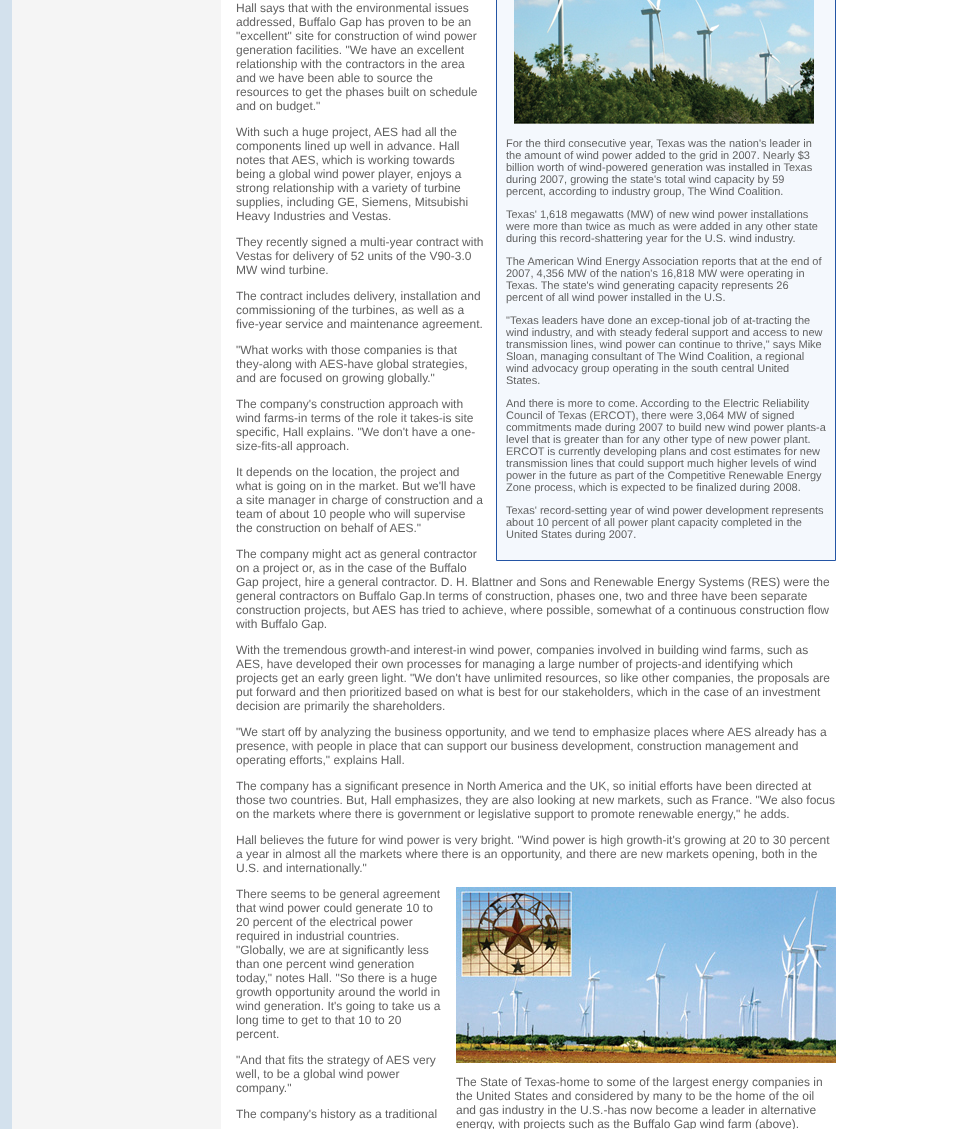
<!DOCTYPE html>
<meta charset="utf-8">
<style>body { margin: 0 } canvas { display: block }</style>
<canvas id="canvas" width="964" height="1129"></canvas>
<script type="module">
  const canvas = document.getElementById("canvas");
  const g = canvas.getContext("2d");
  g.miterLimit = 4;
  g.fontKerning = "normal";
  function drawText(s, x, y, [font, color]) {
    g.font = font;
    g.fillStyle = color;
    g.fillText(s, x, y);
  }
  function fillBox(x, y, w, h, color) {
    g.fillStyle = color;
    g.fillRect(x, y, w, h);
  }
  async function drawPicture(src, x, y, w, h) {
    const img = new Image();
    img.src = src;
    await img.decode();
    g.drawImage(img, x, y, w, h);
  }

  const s1 = ["12px Liberation Sans", "#626262"];
  const s2 = ["11px Liberation Sans", "#626262"];

  fillBox(0, 0, 964, 1129, "#D3E1ED");
  fillBox(12, 0, 209, 1129, "#F5F5F5");
  fillBox(221, 0, 743, 1129, "#FFFFFF");
  drawText("Hall says that with the environmental issues", 236, 12, s1);
  drawText("addressed, Buffalo Gap has proven to be an", 236, 26, s1);
  drawText("\"excellent\" site for construction of wind power", 236, 40, s1);
  drawText("generation facilities. \"We have an excellent", 236, 54, s1);
  drawText("relationship with the contractors in the area", 236, 68, s1);
  drawText("and we have been able to source the", 236, 82, s1);
  drawText("resources to get the phases built on schedule", 236, 96, s1);
  drawText("and on budget.\"", 236, 110, s1);
  drawText("With such a huge project, AES had all the", 236, 136, s1);
  drawText("components lined up well in advance. Hall", 236, 150, s1);
  drawText("notes that AES, which is working towards", 236, 164, s1);
  drawText("being a global wind power player, enjoys a", 236, 178, s1);
  drawText("strong relationship with a variety of turbine", 236, 192, s1);
  drawText("supplies, including GE, Siemens, Mitsubishi", 236, 206, s1);
  drawText("Heavy Industries and Vestas.", 236, 220, s1);
  g.fillStyle = "#F4F8FD";
  g.beginPath();
  g.rect(496.5, -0.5, 339, 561);
  g.fill();
  g.strokeStyle = "#2455A5";
  g.stroke();
  await drawPicture("pic1.png", 514, 0, 300, 124);
  drawText("For the third consecutive year, Texas was the nation's leader in", 506, 147, s2);
  drawText("the amount of wind power added to the grid in 2007. Nearly $3", 506, 159, s2);
  drawText("billion worth of wind-powered generation was installed in Texas", 506, 171, s2);
  drawText("during 2007, growing the state's total wind capacity by 59", 506, 183, s2);
  drawText("percent, according to industry group, The Wind Coalition.", 506, 195, s2);
  drawText("Texas' 1,618 megawatts (MW) of new wind power installations", 506, 218, s2);
  drawText("were more than twice as much as were added in any other state", 506, 230, s2);
  drawText("during this record-shattering year for the U.S. wind industry.", 506, 242, s2);
  drawText("The American Wind Energy Association reports that at the end of", 506, 265, s2);
  drawText("2007, 4,356 MW of the nation's 16,818 MW were operating in", 506, 277, s2);
  drawText("Texas. The state's wind generating capacity represents 26", 506, 289, s2);
  drawText("percent of all wind power installed in the U.S.", 506, 301, s2);
  drawText("\"Texas leaders have done an excep-tional job of at-tracting the", 506, 324, s2);
  drawText("wind industry, and with steady federal support and access to new", 506, 336, s2);
  drawText("transmission lines, wind power can continue to thrive,\" says Mike", 506, 348, s2);
  drawText("Sloan, managing consultant of The Wind Coalition, a regional", 506, 360, s2);
  drawText("wind advocacy group operating in the south central United", 506, 372, s2);
  drawText("States.", 506, 384, s2);
  drawText("And there is more to come. According to the Electric Reliability", 506, 407, s2);
  drawText("Council of Texas (ERCOT), there were 3,064 MW of signed", 506, 419, s2);
  drawText("commitments made during 2007 to build new wind power plants-a", 506, 431, s2);
  drawText("level that is greater than for any other type of new power plant.", 506, 443, s2);
  drawText("ERCOT is currently developing plans and cost estimates for new", 506, 455, s2);
  drawText("transmission lines that could support much higher levels of wind", 506, 467, s2);
  drawText("power in the future as part of the Competitive Renewable Energy", 506, 479, s2);
  drawText("Zone process, which is expected to be finalized during 2008.", 506, 491, s2);
  drawText("Texas' record-setting year of wind power development represents", 506, 514, s2);
  drawText("about 10 percent of all power plant capacity completed in the", 506, 526, s2);
  drawText("United States during 2007.", 506, 538, s2);
  drawText("They recently signed a multi-year contract with", 236, 246, s1);
  drawText("Vestas for delivery of 52 units of the V90-3.0", 236, 260, s1);
  drawText("MW wind turbine.", 236, 274, s1);
  drawText("The contract includes delivery, installation and", 236, 300, s1);
  drawText("commissioning of the turbines, as well as a", 236, 314, s1);
  drawText("five-year service and maintenance agreement.", 236, 328, s1);
  drawText("\"What works with those companies is that", 236, 354, s1);
  drawText("they-along with AES-have global strategies,", 236, 368, s1);
  drawText("and are focused on growing globally.\"", 236, 382, s1);
  drawText("The company's construction approach with", 236, 408, s1);
  drawText("wind farms-in terms of the role it takes-is site", 236, 422, s1);
  drawText("specific, Hall explains. \"We don't have a one-", 236, 436, s1);
  drawText("size-fits-all approach.", 236, 450, s1);
  drawText("It depends on the location, the project and", 236, 476, s1);
  drawText("what is going on in the market. But we'll have", 236, 490, s1);
  drawText("a site manager in charge of construction and a", 236, 504, s1);
  drawText("team of about 10 people who will supervise", 236, 518, s1);
  drawText("the construction on behalf of AES.\"", 236, 532, s1);
  drawText("The company might act as general contractor", 236, 558, s1);
  drawText("on a project or, as in the case of the Buffalo", 236, 572, s1);
  drawText("Gap project, hire a general contractor. D. H. Blattner and Sons and Renewable Energy Systems (RES) were the", 236, 586, s1);
  drawText("general contractors on Buffalo Gap.In terms of construction, phases one, two and three have been separate", 236, 600, s1);
  drawText("construction projects, but AES has tried to achieve, where possible, somewhat of a continuous construction flow", 236, 614, s1);
  drawText("with Buffalo Gap.", 236, 628, s1);
  drawText("With the tremendous growth-and interest-in wind power, companies involved in building wind farms, such as", 236, 654, s1);
  drawText("AES, have developed their own processes for managing a large number of projects-and identifying which", 236, 668, s1);
  drawText("projects get an early green light. \"We don't have unlimited resources, so like other companies, the proposals are", 236, 682, s1);
  drawText("put forward and then prioritized based on what is best for our stakeholders, which in the case of an investment", 236, 696, s1);
  drawText("decision are primarily the shareholders.", 236, 710, s1);
  drawText("\"We start off by analyzing the business opportunity, and we tend to emphasize places where AES already has a", 236, 736, s1);
  drawText("presence, with people in place that can support our business development, construction management and", 236, 750, s1);
  drawText("operating efforts,\" explains Hall.", 236, 764, s1);
  drawText("The company has a significant presence in North America and the UK, so initial efforts have been directed at", 236, 790, s1);
  drawText("those two countries. But, Hall emphasizes, they are also looking at new markets, such as France. \"We also focus", 236, 804, s1);
  drawText("on the markets where there is government or legislative support to promote renewable energy,\" he adds.", 236, 818, s1);
  drawText("Hall believes the future for wind power is very bright. \"Wind power is high growth-it's growing at 20 to 30 percent", 236, 844, s1);
  drawText("a year in almost all the markets where there is an opportunity, and there are new markets opening, both in the", 236, 858, s1);
  drawText("U.S. and internationally.\"", 236, 872, s1);
  drawText("There seems to be general agreement", 236, 898, s1);
  drawText("that wind power could generate 10 to", 236, 912, s1);
  drawText("20 percent of the electrical power", 236, 926, s1);
  drawText("required in industrial countries.", 236, 940, s1);
  drawText("\"Globally, we are at significantly less", 236, 954, s1);
  drawText("than one percent wind generation", 236, 968, s1);
  drawText("today,\" notes Hall. \"So there is a huge", 236, 982, s1);
  drawText("growth opportunity around the world in", 236, 996, s1);
  drawText("wind generation. It's going to take us a", 236, 1010, s1);
  drawText("long time to get to that 10 to 20", 236, 1024, s1);
  drawText("percent.", 236, 1038, s1);
  drawText("\"And that fits the strategy of AES very", 236, 1064, s1);
  drawText("well, to be a global wind power", 236, 1078, s1);
  drawText("company.\"", 236, 1092, s1);
  await drawPicture("pic2.png", 456, 887, 380, 176);
  drawText("The State of Texas-home to some of the largest energy companies in", 456, 1086, s1);
  drawText("the United States and considered by many to be the home of the oil", 456, 1100, s1);
  drawText("and gas industry in the U.S.-has now become a leader in alternative", 456, 1114, s1);
  drawText("energy, with projects such as the Buffalo Gap wind farm (above).", 456, 1128, s1);
  drawText("The company's history as a traditional", 236, 1118, s1);
</script>
